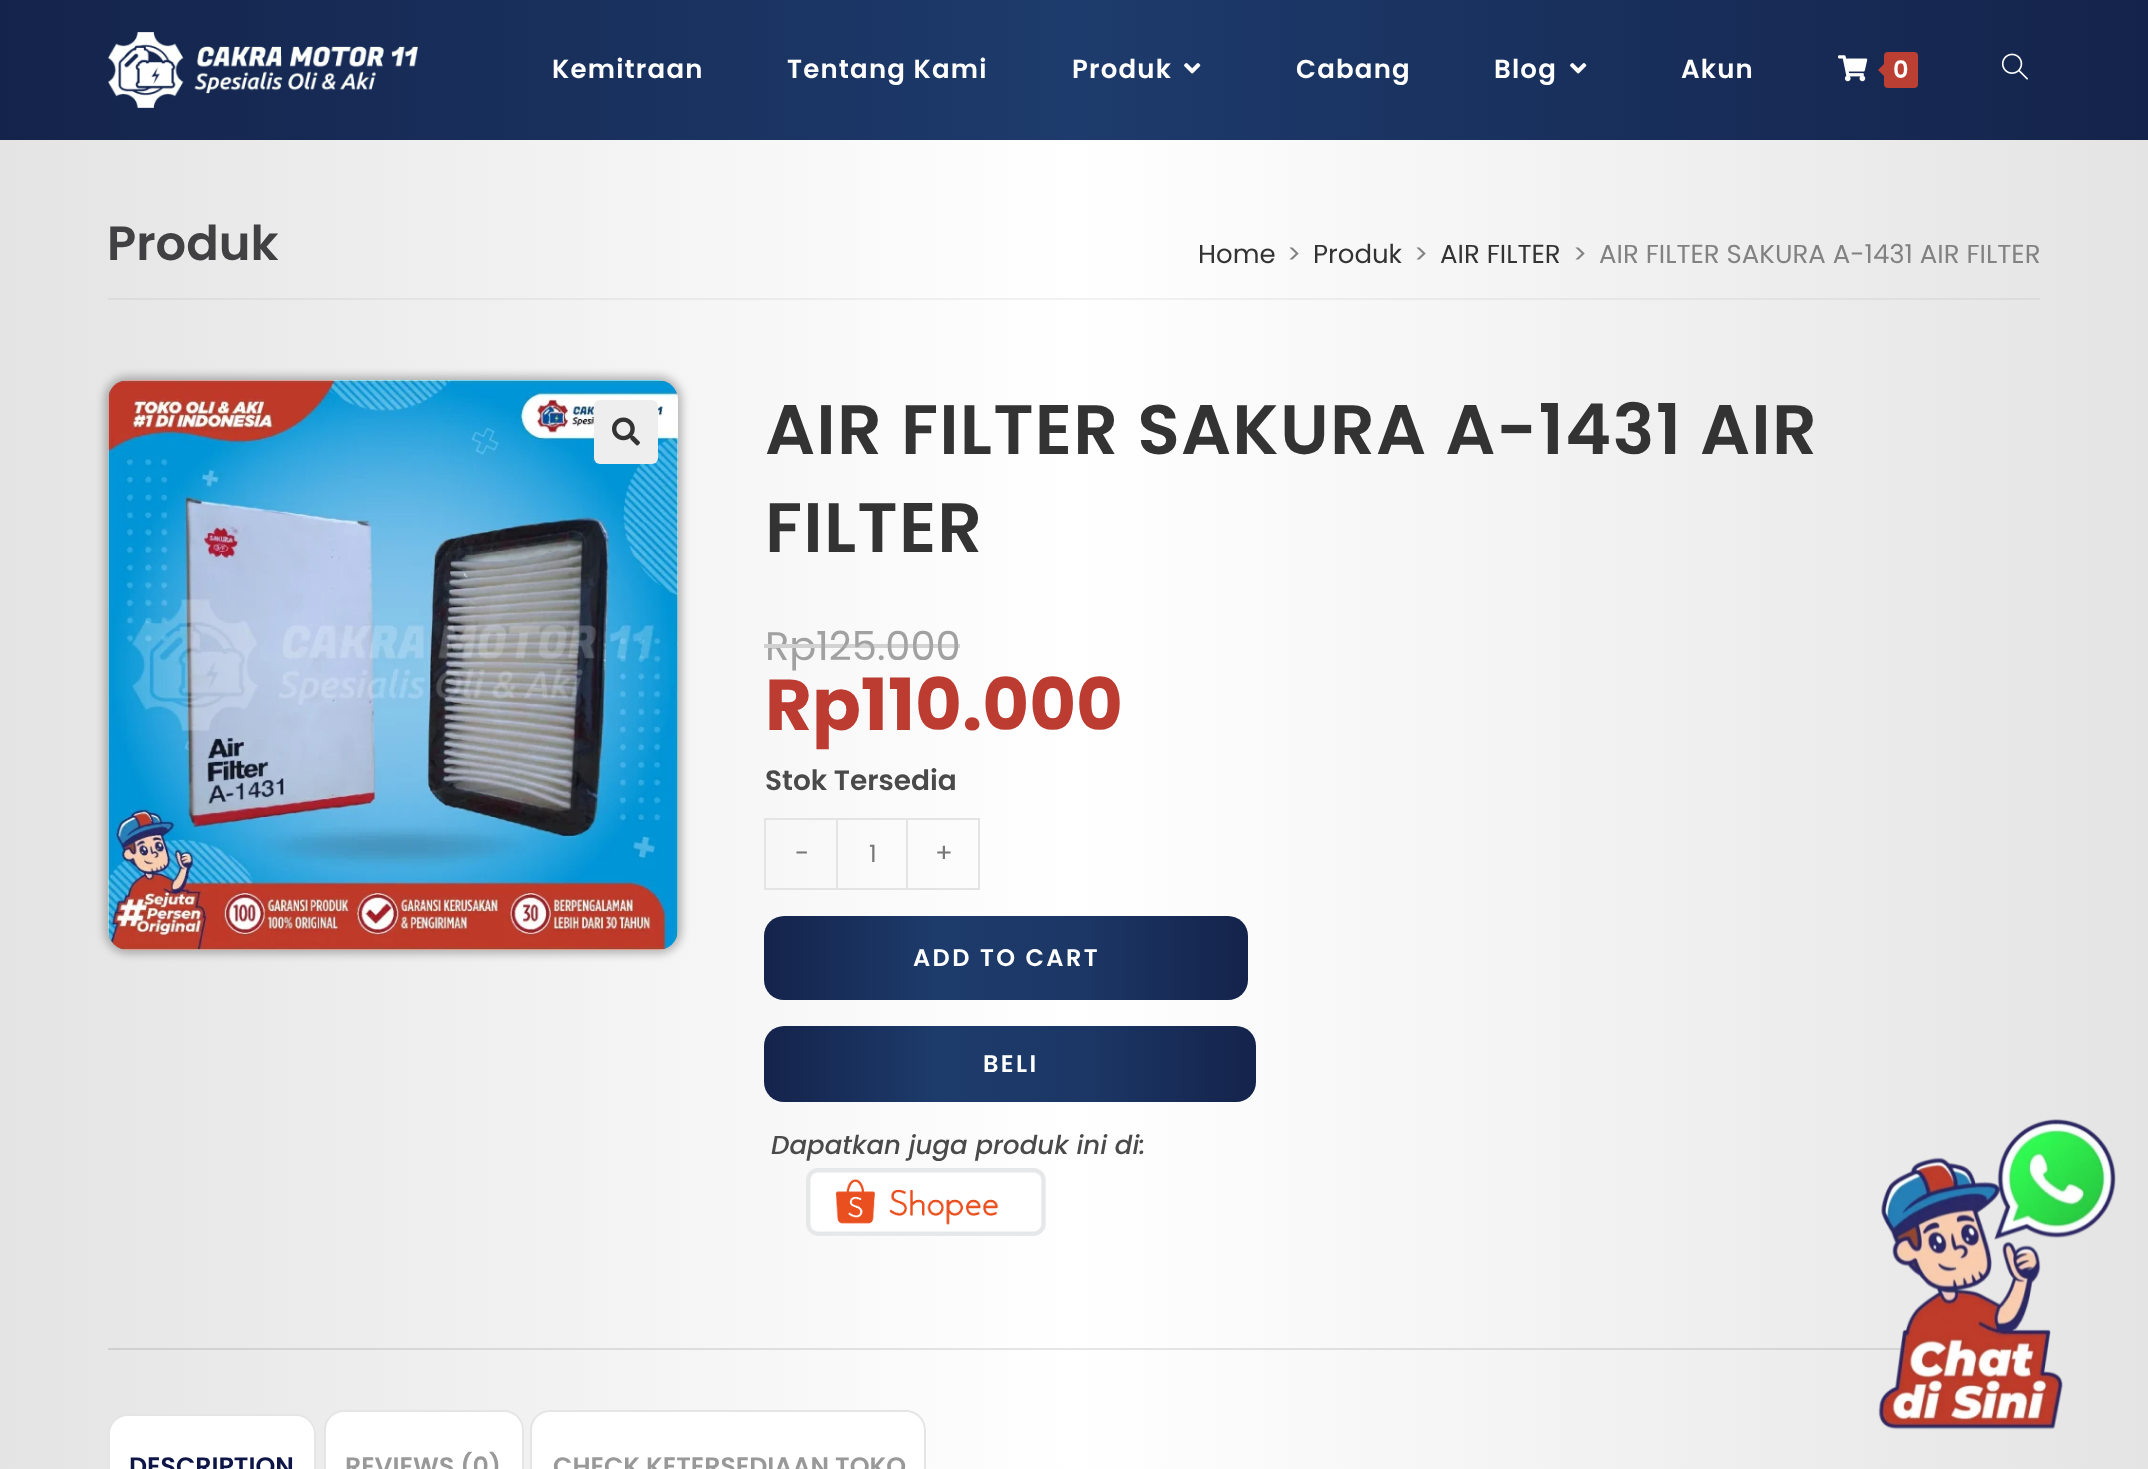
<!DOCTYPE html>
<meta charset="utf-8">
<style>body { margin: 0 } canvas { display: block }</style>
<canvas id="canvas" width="2148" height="1469"></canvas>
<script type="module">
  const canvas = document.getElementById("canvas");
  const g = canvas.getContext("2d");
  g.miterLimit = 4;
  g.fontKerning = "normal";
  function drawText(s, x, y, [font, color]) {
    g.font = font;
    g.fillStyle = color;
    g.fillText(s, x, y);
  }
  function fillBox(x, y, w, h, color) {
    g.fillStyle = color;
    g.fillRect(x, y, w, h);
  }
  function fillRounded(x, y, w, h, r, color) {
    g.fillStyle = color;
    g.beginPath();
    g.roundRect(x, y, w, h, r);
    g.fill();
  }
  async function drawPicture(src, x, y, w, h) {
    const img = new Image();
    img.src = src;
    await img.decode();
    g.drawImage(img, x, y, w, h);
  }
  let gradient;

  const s1 = ["600 26px Poppins", "#FFFFFF"];
  const s2 = ["600 24px Poppins", "#FFFFFF"];
  const s3 = ["600 48px Poppins", "#414042"];
  const s4 = ["26px Poppins", "#333333"];
  const s5 = ["26px Poppins", "#828282"];
  const s6 = ["600 70px Poppins", "#333333"];
  const s7 = ["40px Poppins", "#A1A1A1"];
  const s8 = ["bold 72px Poppins", "#BC3C32"];
  const s9 = ["600 28px Poppins", "#4A4A4A"];
  const s10 = ["26px Poppins", "#777777"];
  const s11 = ["24px Poppins", "#777777"];
  const s12 = ["italic 500 26px Poppins", "#4A4A4A"];
  const s13 = ["600 25.25px Poppins", "#0E1547"];
  const s14 = ["600 25.25px Poppins", "#999999"];

  fillBox(0, 0, 2148, 1469, "#FFFFFF");
  gradient = g.createLinearGradient(0, 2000, 2148, 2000);
  gradient.addColorStop(0, "#E4E4E4");
  gradient.addColorStop(0.5, "#FFFFFF");
  gradient.addColorStop(1, "#E4E4E4");
  g.fillStyle = gradient;
  g.fillRect(0, 140, 2148, 1329);
  gradient = g.createLinearGradient(0, 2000, 2148, 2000);
  gradient.addColorStop(0, "#CDCDCD");
  gradient.addColorStop(0.5, "#E6E6E6");
  gradient.addColorStop(1, "#CDCDCD");
  g.fillStyle = gradient;
  g.fillRect(108, 1348, 1795, 2);
  gradient = g.createLinearGradient(0, 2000, 2148, 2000);
  gradient.addColorStop(0, "#D9D9D9");
  gradient.addColorStop(0.5, "#F2F2F2");
  gradient.addColorStop(1, "#D9D9D9");
  g.fillStyle = gradient;
  g.fillRect(108, 298, 1932, 2);
  gradient = g.createLinearGradient(0, 70, 2148, 70);
  gradient.addColorStop(0, "#14234B");
  gradient.addColorStop(0.5, "#1D3B6C");
  gradient.addColorStop(1, "#14234B");
  g.fillStyle = gradient;
  g.fillRect(0, 0, 2148, 140);
  await drawPicture("pic1.png", 108, 32, 310, 76);
  g.letterSpacing = "1.2px";
  drawText("Kemitraan", 552, 78, s1);
  drawText("Tentang Kami", 787, 78, s1);
  drawText("Produk", 1072, 78, s1);
  await drawPicture("pic2.png", 1184, 63, 17, 11);
  drawText("Cabang", 1296, 78, s1);
  drawText("Blog", 1494, 78, s1);
  await drawPicture("pic3.png", 1570, 63, 17, 11);
  drawText("Akun", 1681, 78, s1);
  await drawPicture("pic4.png", 1838, 55, 30, 27);
  fillRounded(1884, 52, 34, 36, 4, "#BC3F33");
  g.beginPath();
  g.moveTo(1888, 60);
  g.lineTo(1888, 80);
  g.lineTo(1878, 70);
  g.closePath();
  g.fill();
  g.letterSpacing = "0px";
  drawText("0", 1893, 78, s2);
  await drawPicture("pic5.png", 2001, 53, 27, 27);
  drawText("Produk", 107, 260, s3);
  drawText("Home", 1198, 263, s4);
  drawText(">", 1287, 263, s5);
  drawText("Produk", 1313, 263, s4);
  drawText(">", 1414, 263, s5);
  drawText("AIR FILTER", 1440, 263, s4);
  drawText(">", 1573, 263, s5);
  drawText("AIR FILTER SAKURA A-1431 AIR FILTER", 1599, 263, s5);
  g.fillStyle = "rgba(0, 0, 0, 0.25)";
  g.filter = "blur(4px)";
  g.beginPath();
  g.roundRect(104, 376, 578, 578, 24);
  g.fill();
  g.filter = "none";
  await drawPicture("pic6.png", 108, 380, 570, 570);
  fillRounded(594, 400, 64, 64, 6, "#EEEEEE");
  await drawPicture("pic7.png", 612, 417, 28, 29);
  g.letterSpacing = "1.2px";
  drawText("AIR FILTER SAKURA A-1431 AIR", 765, 454, s6);
  drawText("FILTER", 765, 552, s6);
  g.letterSpacing = "0px";
  drawText("Rp", 765, 660, s7);
  drawText("125.000", 816, 660, s7);
  fillBox(764, 644, 52, 4, "#D1D1D1");
  fillBox(816, 644, 144, 4, "rgba(171, 171, 171, 0.5)");
  drawText("Rp110.000", 765, 730, s8);
  drawText("Stok Tersedia", 765, 790, s9);
  fillBox(764, 818, 72, 2, "#E4E4E4");
  fillBox(764, 888, 72, 2, "#E4E4E4");
  fillBox(764, 818, 2, 72, "#E4E4E4");
  drawText("-", 795, 862, s10);
  g.strokeStyle = "#E4E4E4";
  g.lineWidth = 2;
  g.strokeRect(837, 819, 70, 70);
  drawText("1", 869, 862, s11);
  fillBox(908, 818, 72, 2, "#E4E4E4");
  fillBox(978, 818, 2, 72, "#E4E4E4");
  fillBox(908, 888, 72, 2, "#E4E4E4");
  drawText("+", 935, 862, s10);
  gradient = g.createLinearGradient(764, 958, 1248, 958);
  gradient.addColorStop(0, "#14234B");
  gradient.addColorStop(0.35, "#1D3B6B");
  gradient.addColorStop(0.65, "#1C3766");
  gradient.addColorStop(1, "#14234B");
  g.fillStyle = gradient;
  g.beginPath();
  g.roundRect(764, 916, 484, 84, 20);
  g.fill();
  g.letterSpacing = "2.4px";
  drawText("ADD TO CART", 913, 966, s2);
  gradient = g.createLinearGradient(764, 1064, 1256, 1064);
  gradient.addColorStop(0, "#14234B");
  gradient.addColorStop(0.35, "#1D3B6B");
  gradient.addColorStop(0.65, "#1C3766");
  gradient.addColorStop(1, "#14234B");
  g.fillStyle = gradient;
  g.beginPath();
  g.roundRect(764, 1026, 492, 76, 20);
  g.fill();
  drawText("BELI", 983, 1072, s2);
  g.letterSpacing = "0px";
  drawText("Dapatkan juga produk ini di:", 771, 1154, s12);
  await drawPicture("pic8.png", 806, 1168, 240, 68);
  g.fillStyle = "#FFFFFF";
  g.beginPath();
  g.moveTo(128, 1414);
  g.lineTo(296, 1414);
  g.bezierCurveTo(307, 1414, 316, 1423, 316, 1434);
  g.lineTo(316, 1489);
  g.lineTo(108, 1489);
  g.lineTo(108, 1434);
  g.bezierCurveTo(108, 1423, 117, 1414, 128, 1414);
  g.closePath();
  g.fill();
  g.fillStyle = "rgba(0, 0, 0, 0.1)";
  g.beginPath();
  g.moveTo(128, 1414);
  g.lineTo(296, 1414);
  g.bezierCurveTo(307, 1414, 316, 1423, 316, 1434);
  g.lineTo(316, 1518);
  g.lineTo(108, 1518);
  g.lineTo(108, 1434);
  g.bezierCurveTo(108, 1423, 117, 1414, 128, 1414);
  g.closePath();
  g.moveTo(128, 1416);
  g.lineTo(296, 1416);
  g.bezierCurveTo(306, 1416, 314, 1424, 314, 1434);
  g.lineTo(314, 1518);
  g.lineTo(110, 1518);
  g.lineTo(110, 1434);
  g.bezierCurveTo(110, 1424, 118, 1416, 128, 1416);
  g.closePath();
  g.fill("evenodd");
  drawText("DESCRIPTION", 129, 1475, s13);
  g.fillStyle = "#FFFFFF";
  g.beginPath();
  g.moveTo(344, 1410);
  g.lineTo(504, 1410);
  g.bezierCurveTo(515, 1410, 524, 1419, 524, 1430);
  g.lineTo(524, 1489);
  g.lineTo(324, 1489);
  g.lineTo(324, 1430);
  g.bezierCurveTo(324, 1419, 333, 1410, 344, 1410);
  g.closePath();
  g.fill();
  g.fillStyle = "rgba(0, 0, 0, 0.1)";
  g.beginPath();
  g.moveTo(344, 1410);
  g.lineTo(504, 1410);
  g.bezierCurveTo(515, 1410, 524, 1419, 524, 1430);
  g.lineTo(524, 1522);
  g.lineTo(324, 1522);
  g.lineTo(324, 1430);
  g.bezierCurveTo(324, 1419, 333, 1410, 344, 1410);
  g.closePath();
  g.moveTo(344, 1412);
  g.lineTo(504, 1412);
  g.bezierCurveTo(514, 1412, 522, 1420, 522, 1430);
  g.lineTo(522, 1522);
  g.lineTo(326, 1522);
  g.lineTo(326, 1430);
  g.bezierCurveTo(326, 1420, 334, 1412, 344, 1412);
  g.closePath();
  g.fill("evenodd");
  drawText("REVIEWS (0)", 345, 1475, s14);
  g.fillStyle = "#FFFFFF";
  g.beginPath();
  g.moveTo(550, 1410);
  g.lineTo(906, 1410);
  g.bezierCurveTo(917, 1410, 926, 1419, 926, 1430);
  g.lineTo(926, 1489);
  g.lineTo(530, 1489);
  g.lineTo(530, 1430);
  g.bezierCurveTo(530, 1419, 539, 1410, 550, 1410);
  g.closePath();
  g.fill();
  g.fillStyle = "rgba(0, 0, 0, 0.1)";
  g.beginPath();
  g.moveTo(550, 1410);
  g.lineTo(906, 1410);
  g.bezierCurveTo(917, 1410, 926, 1419, 926, 1430);
  g.lineTo(926, 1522);
  g.lineTo(530, 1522);
  g.lineTo(530, 1430);
  g.bezierCurveTo(530, 1419, 539, 1410, 550, 1410);
  g.closePath();
  g.moveTo(550, 1412);
  g.lineTo(906, 1412);
  g.bezierCurveTo(916, 1412, 924, 1420, 924, 1430);
  g.lineTo(924, 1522);
  g.lineTo(532, 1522);
  g.lineTo(532, 1430);
  g.bezierCurveTo(532, 1420, 540, 1412, 550, 1412);
  g.closePath();
  g.fill("evenodd");
  drawText("CHECK KETERSEDIAAN TOKO", 553, 1475, s14);
  await drawPicture("pic9.png", 1878, 1119, 238, 311);
</script>
